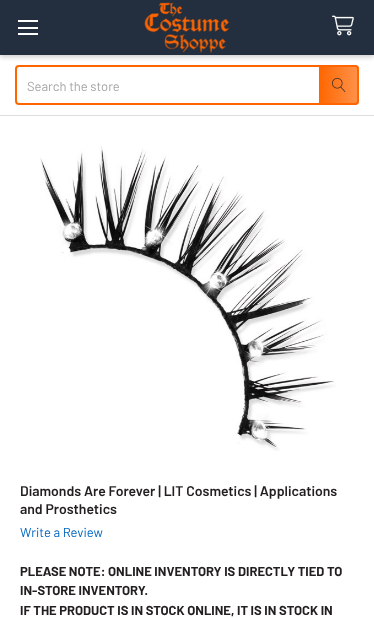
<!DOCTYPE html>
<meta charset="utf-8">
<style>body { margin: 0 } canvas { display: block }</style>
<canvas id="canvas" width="374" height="619"></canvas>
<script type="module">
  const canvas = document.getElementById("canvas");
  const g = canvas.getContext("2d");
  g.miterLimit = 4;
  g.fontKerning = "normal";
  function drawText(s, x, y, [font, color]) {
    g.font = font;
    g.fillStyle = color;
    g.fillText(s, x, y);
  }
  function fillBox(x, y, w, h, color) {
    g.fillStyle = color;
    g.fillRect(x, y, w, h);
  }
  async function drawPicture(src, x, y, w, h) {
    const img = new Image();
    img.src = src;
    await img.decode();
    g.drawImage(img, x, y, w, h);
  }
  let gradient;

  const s1 = ["13px Barlow", "#A5A5A5"];
  const s2 = ["600 14px Barlow", "#231F20"];
  const s3 = ["13px Barlow", "#0066C0"];
  const s4 = ["bold 13px Barlow", "#231F20"];

  fillBox(0, 0, 374, 619, "#FFFFFF");
  g.beginPath();
  g.roundRect(16, 66, 342, 38, 3);
  g.strokeStyle = "#FF6600";
  g.lineWidth = 2;
  g.stroke();
  gradient = g.createLinearGradient(319, 85, 359, 85);
  gradient.addColorStop(0, "#FF6600");
  gradient.addColorStop(1, "rgba(255, 102, 0, 0.7)");
  g.fillStyle = gradient;
  g.beginPath();
  g.roundRect(319, 65, 40, 40, [0, 4, 4, 0]);
  g.fill();
  g.fillStyle = "rgba(0, 0, 0, 0.2)";
  g.filter = "blur(2.5px)";
  g.beginPath();
  g.rect(0, 2, 374, 55);
  g.fill();
  g.filter = "none";
  fillBox(0, 0, 374, 55, "#232F3E");
  fillBox(18, 27, 20, 2, "#FFFFFF");
  fillBox(18, 20, 20, 2, "#FFFFFF");
  fillBox(18, 33, 20, 2, "#FFFFFF");
  await drawPicture("pic1.png", 144, 2, 86, 51);
  await drawPicture("pic2.png", 332, 15, 22, 21);
  fillBox(0, 115, 374, 1, "#DDDDDD");
  drawText("Search the store", 27, 91, s1);
  await drawPicture("pic3.png", 332, 78, 14, 14);
  await drawPicture("pic4.png", 40, 145, 296, 306);
  drawText("Diamonds Are Forever | LIT Cosmetics | Applications", 20, 496, s2);
  drawText("and Prosthetics", 20, 514, s2);
  drawText("Write a Review", 20, 537, s3);
  drawText("PLEASE NOTE: ONLINE INVENTORY IS DIRECTLY TIED TO", 20, 576, s4);
  drawText("IN-STORE INVENTORY.", 20, 595, s4);
  drawText("IF THE PRODUCT IS IN STOCK ONLINE, IT IS IN STOCK IN", 20, 615, s4);
</script>
